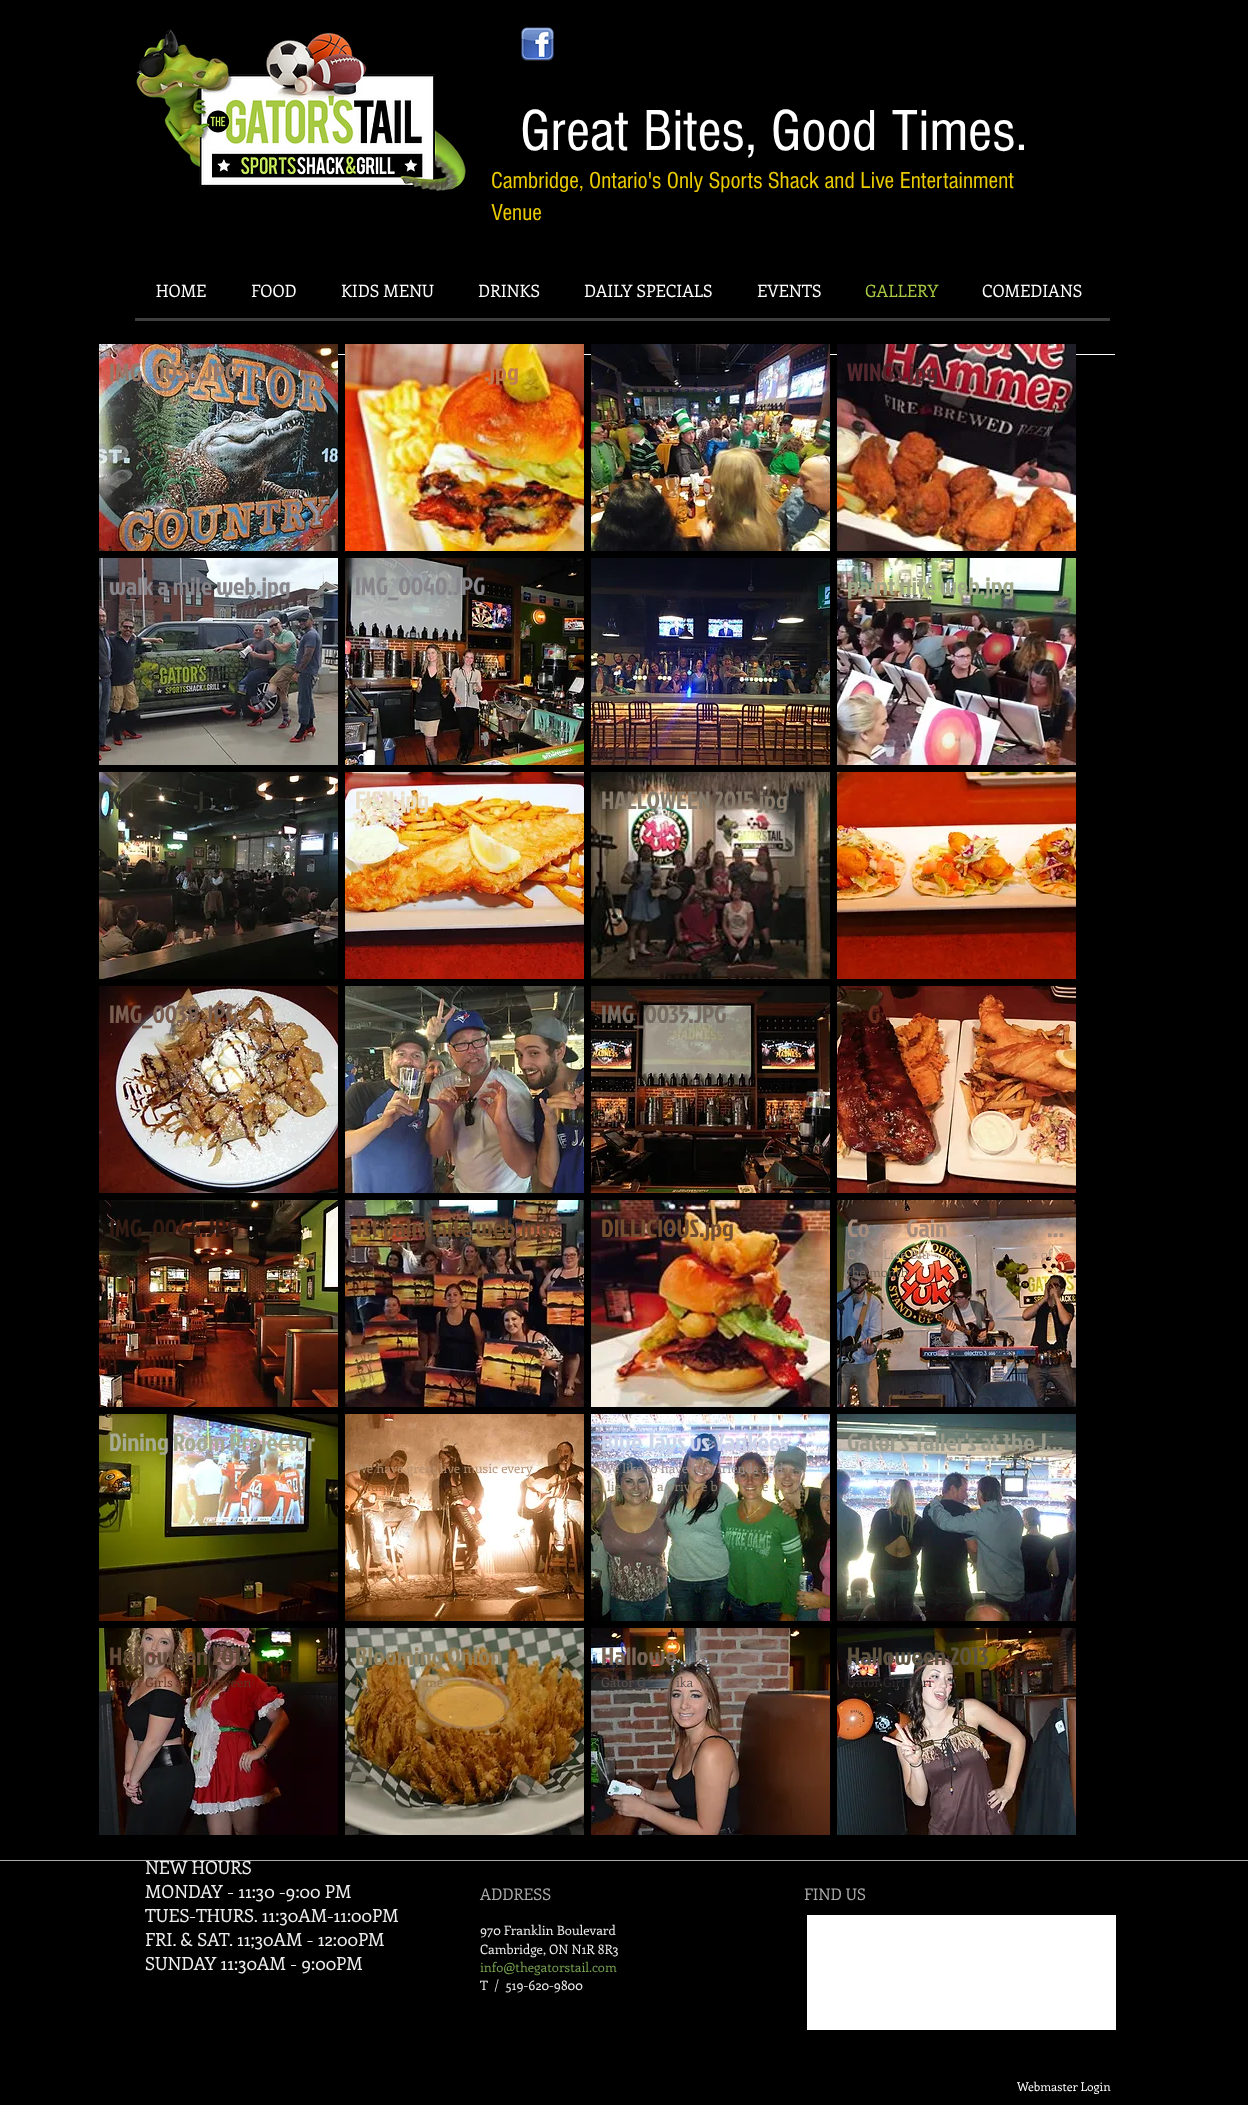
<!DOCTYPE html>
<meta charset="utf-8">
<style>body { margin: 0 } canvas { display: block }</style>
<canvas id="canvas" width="1248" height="2106"></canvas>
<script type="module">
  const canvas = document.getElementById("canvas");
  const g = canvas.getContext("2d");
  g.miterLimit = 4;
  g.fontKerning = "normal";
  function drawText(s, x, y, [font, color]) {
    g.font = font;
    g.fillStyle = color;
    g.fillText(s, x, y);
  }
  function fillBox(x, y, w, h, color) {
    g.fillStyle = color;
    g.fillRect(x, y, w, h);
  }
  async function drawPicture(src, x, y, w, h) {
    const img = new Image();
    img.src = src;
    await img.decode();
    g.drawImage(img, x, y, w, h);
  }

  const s1 = ["60px 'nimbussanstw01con'", "#FFFFFF"];
  const s2 = ["24px 'nimbussanstw01con'", "#EACB00"];
  const s3 = ["17px Enriqueta", "#FFFFFF"];
  const s4 = ["17px Enriqueta", "#A7CA42"];
  const s5 = ["25px Jockey One", "#9A7868"];
  const s6 = ["25px Jockey One", "#BF7C53"];
  const s7 = ["25px Jockey One", "#50272D"];
  const s8 = ["25px Jockey One", "#878589"];
  const s9 = ["25px Jockey One", "#9FA787"];
  const s10 = ["25px Jockey One", "#33342C"];
  const s11 = ["25px Jockey One", "#EADEC7"];
  const s12 = ["25px Jockey One", "#877B6C"];
  const s13 = ["25px Jockey One", "#795E50"];
  const s14 = ["25px Jockey One", "#504E4A"];
  const s15 = ["25px Jockey One", "#766B60"];
  const s16 = ["25px Jockey One", "#692D1D"];
  const s17 = ["25px Jockey One", "#311B12"];
  const s18 = ["25px Jockey One", "#724D30"];
  const s19 = ["25px Jockey One", "#A48B7C"];
  const s20 = ["13px Enriqueta", "#A59281"];
  const s21 = ["13px Enriqueta", "#786556"];
  const s22 = ["25px Jockey One", "#A5AA91"];
  const s23 = ["25px Jockey One", "#B88358"];
  const s24 = ["13px Enriqueta", "#B49072"];
  const s25 = ["13px Enriqueta", "#A76938"];
  const s26 = ["25px Jockey One", "#CCD4EA"];
  const s27 = ["13px Enriqueta", "#9C9193"];
  const s28 = ["13px Enriqueta", "#958774"];
  const s29 = ["13px Enriqueta", "#7D6849"];
  const s30 = ["25px Jockey One", "#999A8B"];
  const s31 = ["25px Jockey One", "#624938"];
  const s32 = ["13px Enriqueta", "#623325"];
  const s33 = ["25px Jockey One", "#91805D"];
  const s34 = ["13px Enriqueta", "#977440"];
  const s35 = ["25px Jockey One", "#786556"];
  const s36 = ["13px Enriqueta", "#5C524F"];
  const s37 = ["25px Jockey One", "#5E533E"];
  const s38 = ["13px Enriqueta", "#322B2C"];
  const s39 = ["18px Enriqueta", "#EFEFEF"];
  const s40 = ["16px Enriqueta", "#ABABAB"];
  const s41 = ["13px Enriqueta", "#EFEFEF"];
  const s42 = ["13px Enriqueta", "#76A351"];
  const s43 = ["12px Enriqueta", "#FFFFFF"];

  fillBox(0, 0, 1248, 2106, "#FFFFFF");
  fillBox(0, 0, 1248, 2105, "#000000");
  await drawPicture("pic1.png", 136, 29, 330, 162);
  await drawPicture("pic2.png", 521, 27, 33, 34);
  drawText("Great Bites, Good Times.", 520, 150, s1);
  drawText("Cambridge, Ontario's Only Sports Shack and Live Entertainment", 491, 188, s2);
  drawText("Venue", 491, 220, s2);
  drawText("HOME", 156, 297, s3);
  drawText("FOOD", 251, 297, s3);
  drawText("KIDS MENU", 341, 297, s3);
  drawText("DRINKS", 478, 297, s3);
  drawText("DAILY SPECIALS", 584, 297, s3);
  drawText("EVENTS", 757, 297, s3);
  drawText("GALLERY", 865, 297, s4);
  drawText("COMEDIANS", 982, 297, s3);
  fillBox(135, 318, 975, 3, "#3E3E3E");
  fillBox(338, 354, 777, 1, "#FFFFFF");
  await drawPicture("pic3.png", 99, 344, 239, 207);
  drawText("IMG_0036.JPG", 109, 381, s5);
  await drawPicture("pic4.png", 345, 344, 239, 207);
  drawText(".jpg", 484, 381, s6);
  await drawPicture("pic5.png", 591, 344, 239, 207);
  await drawPicture("pic6.png", 837, 344, 239, 207);
  drawText("WINGS.jpg", 847, 381, s7);
  await drawPicture("pic7.png", 99, 558, 239, 207);
  drawText("walk a mile web.jpg", 109, 595, s8);
  await drawPicture("pic8.png", 345, 558, 239, 207);
  drawText("IMG_0040.JPG", 355, 595, s8);
  await drawPicture("pic9.png", 591, 558, 239, 207);
  await drawPicture("pic10.png", 837, 558, 239, 207);
  drawText("paint nite web.jpg", 847, 595, s9);
  await drawPicture("pic11.png", 99, 772, 239, 207);
  drawText("K", 109, 809, s10);
  drawText(".j", 193, 809, s10);
  await drawPicture("pic12.png", 345, 772, 239, 207);
  drawText("FISH.jpg", 355, 809, s11);
  await drawPicture("pic13.png", 591, 772, 239, 207);
  drawText("HALLOWEEN 2015.jpg", 601, 809, s12);
  await drawPicture("pic14.png", 837, 772, 239, 207);
  await drawPicture("pic15.png", 99, 986, 239, 207);
  drawText("IMG_0038.JPG", 109, 1023, s13);
  await drawPicture("pic16.png", 345, 986, 239, 207);
  drawText(".", 440, 1023, s14);
  await drawPicture("pic17.png", 591, 986, 239, 207);
  drawText("IMG_0035.JPG", 601, 1023, s15);
  await drawPicture("pic18.png", 837, 986, 239, 207);
  drawText("G", 868, 1023, s16);
  drawText(".", 934, 1023, s16);
  await drawPicture("pic19.png", 99, 1200, 239, 207);
  drawText("IMG_0044.JPG", 109, 1237, s17);
  await drawPicture("pic20.png", 345, 1200, 239, 207);
  drawText("1st paint nite web.jpg", 355, 1237, s18);
  await drawPicture("pic21.png", 591, 1200, 239, 207);
  drawText("DILLICIOUS.jpg", 601, 1237, s18);
  await drawPicture("pic22.png", 837, 1200, 239, 207);
  drawText("Co", 847, 1237, s19);
  drawText("Gain", 906, 1237, s19);
  drawText("…", 1047, 1237, s19);
  drawText("C", 847, 1259, s20);
  drawText("Live Blu", 883, 1259, s20);
  drawText("v", 951, 1259, s20);
  drawText("s of", 1032, 1259, s20);
  drawText("the month.", 847, 1277, s21);
  await drawPicture("pic23.png", 99, 1414, 239, 207);
  drawText("Dining Room Projector", 109, 1451, s22);
  await drawPicture("pic24.png", 345, 1414, 239, 207);
  drawText("c", 439, 1451, s23);
  drawText("We have great live music every", 355, 1473, s24);
  drawText("Thursday.", 355, 1491, s25);
  await drawPicture("pic25.png", 591, 1414, 239, 207);
  drawText("Blue Jays vs Yankees", 601, 1451, s26);
  drawText("We like to have fun, friends and", 601, 1473, s27);
  drawText("lie", 607, 1491, s28);
  drawText("a priv", 657, 1491, s28);
  drawText("e b", 701, 1491, s28);
  drawText("e", 762, 1491, s28);
  drawText("r", 799, 1491, s28);
  drawText(".", 640, 1509, s29);
  await drawPicture("pic26.png", 837, 1414, 239, 207);
  drawText("Gator's Tailer's at the J…", 847, 1451, s30);
  await drawPicture("pic27.png", 99, 1628, 239, 207);
  drawText("Halloween 2013", 109, 1665, s31);
  drawText("Gator Girls at Halloween", 109, 1687, s32);
  await drawPicture("pic28.png", 345, 1628, 239, 207);
  drawText("Blooming Onion", 355, 1665, s33);
  drawText("N", 355, 1687, s34);
  drawText("me", 425, 1687, s34);
  await drawPicture("pic29.png", 591, 1628, 239, 207);
  drawText("Hallowe", 601, 1665, s35);
  drawText("Gator G", 601, 1687, s36);
  drawText("ika", 676, 1687, s36);
  await drawPicture("pic30.png", 837, 1628, 239, 207);
  drawText("Halloween 2013", 847, 1665, s37);
  drawText("Gator Girl Tori", 847, 1687, s38);
  fillBox(0, 1860, 1248, 1, "#ABABAB");
  drawText("NEW HOURS", 145, 1874, s39);
  drawText("MONDAY - 11:30 -9:00 PM", 145, 1898, s39);
  drawText("TUES-THURS. 11:30AM-11:00PM", 145, 1922, s39);
  drawText("FRI. & SAT. 11;30AM - 12:00PM", 145, 1946, s39);
  drawText("SUNDAY 11:30AM - 9:00PM", 145, 1970, s39);
  drawText("ADDRESS", 480, 1900, s40);
  drawText("FIND US", 804, 1900, s40);
  drawText("970 Franklin Boulevard", 480, 1935, s41);
  drawText("Cambridge, ON N1R 8R3", 480, 1954, s41);
  drawText("info@thegatorstail.com", 480, 1972, s42);
  drawText("T  /  519-620-9800", 480, 1990, s41);
  fillBox(807, 1915, 309, 115, "#FFFFFF");
  drawText("Webmaster Login", 1017, 2091, s43);
</script>
